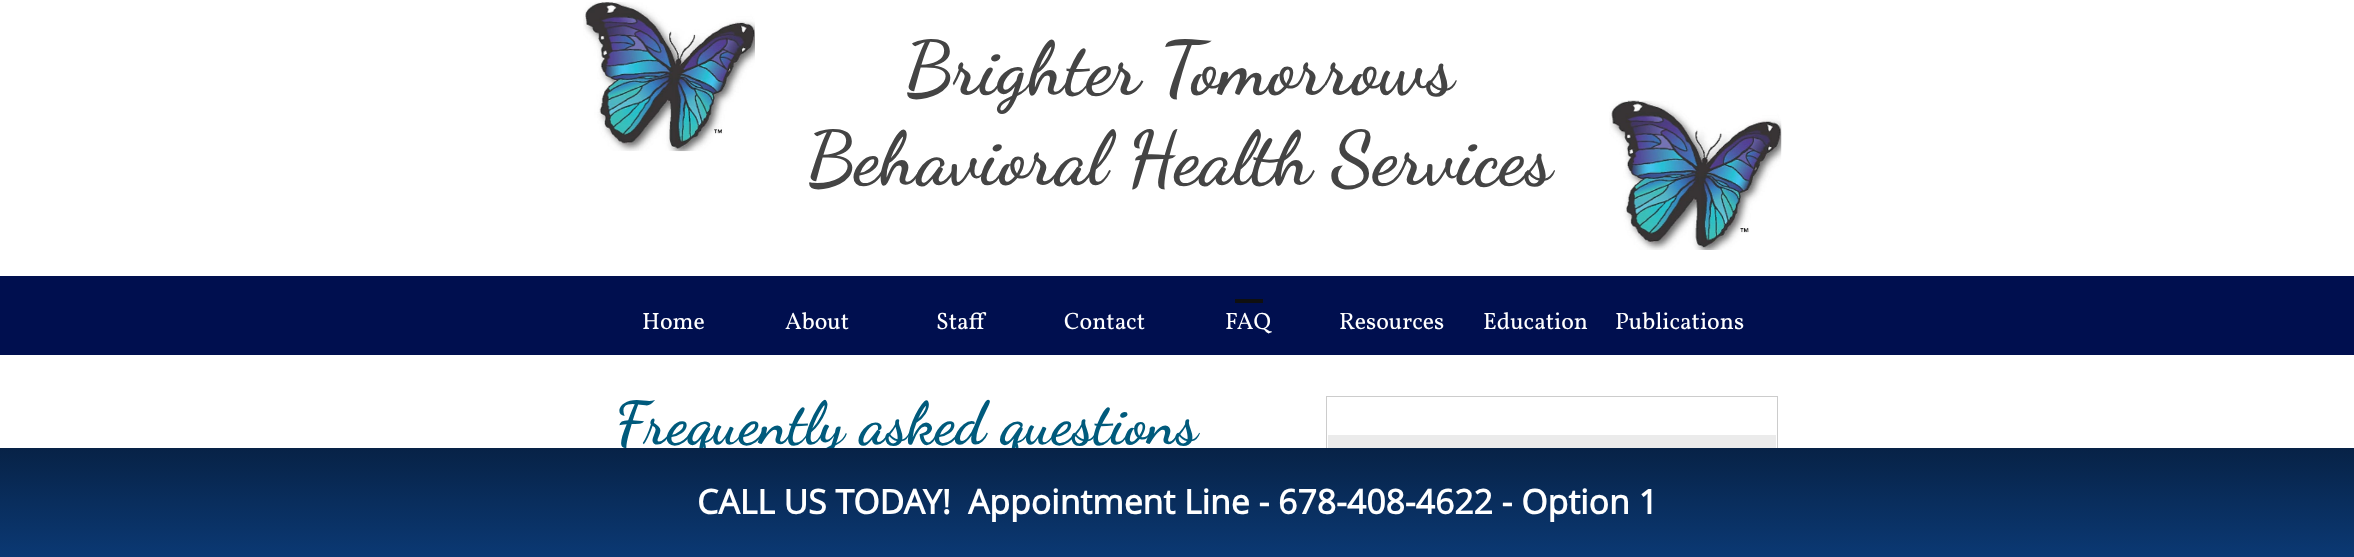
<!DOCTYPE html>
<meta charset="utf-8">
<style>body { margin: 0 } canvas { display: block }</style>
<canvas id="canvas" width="2354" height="557"></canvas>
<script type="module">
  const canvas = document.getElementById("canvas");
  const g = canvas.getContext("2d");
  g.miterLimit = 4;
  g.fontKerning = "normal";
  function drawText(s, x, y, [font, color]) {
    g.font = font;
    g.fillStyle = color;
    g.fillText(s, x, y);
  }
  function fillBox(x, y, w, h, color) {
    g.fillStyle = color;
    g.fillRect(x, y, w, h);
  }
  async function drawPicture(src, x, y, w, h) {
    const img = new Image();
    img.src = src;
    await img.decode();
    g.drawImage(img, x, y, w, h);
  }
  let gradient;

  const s1 = ["bold 75px Dancing Script", "#444444"];
  const s2 = ["23.75px Vollkorn", "#FFFFFF"];
  const s3 = ["bold 60px Dancing Script", "#005A7C"];
  const s4 = ["bold 33.75px Open Sans", "#FFFFFF"];

  fillBox(0, 0, 2354, 557, "#FFFFFF");
  await drawPicture("pic1.png", 583, 1, 172, 151);
  drawText("Brighter Tomorrows", 904, 93, s1);
  drawText("Behavioral Health Services", 806, 183, s1);
  await drawPicture("pic2.png", 1609, 100, 173, 150);
  fillBox(0, 276, 2354, 79, "#000F4F");
  drawText("Home", 642, 329, s2);
  drawText("About", 785, 329, s2);
  drawText("Staff", 936, 329, s2);
  drawText("Contact", 1064, 329, s2);
  fillBox(1235, 299, 28, 4, "#0F0F0F");
  drawText("FAQ", 1225, 329, s2);
  drawText("Resources", 1339, 329, s2);
  drawText("Education", 1483, 329, s2);
  drawText("Publications", 1615, 329, s2);
  drawText("Frequently asked questions", 615, 443, s3);
  g.strokeStyle = "#CCCCCC";
  g.strokeRect(1326.5, 396.5, 451, 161);
  fillBox(1328, 435, 448, 13, "#EBEBEB");
  gradient = g.createLinearGradient(1178, 447, 1178, 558);
  gradient.addColorStop(0, "#072246");
  gradient.addColorStop(1, "#0B3974");
  g.fillStyle = gradient;
  g.fillRect(0, 448, 2354, 109);
  drawText("CALL US TODAY!", 697, 514, s4);
  drawText("Appointment Line - 678-408-4622 - Option 1", 968, 514, s4);
</script>
